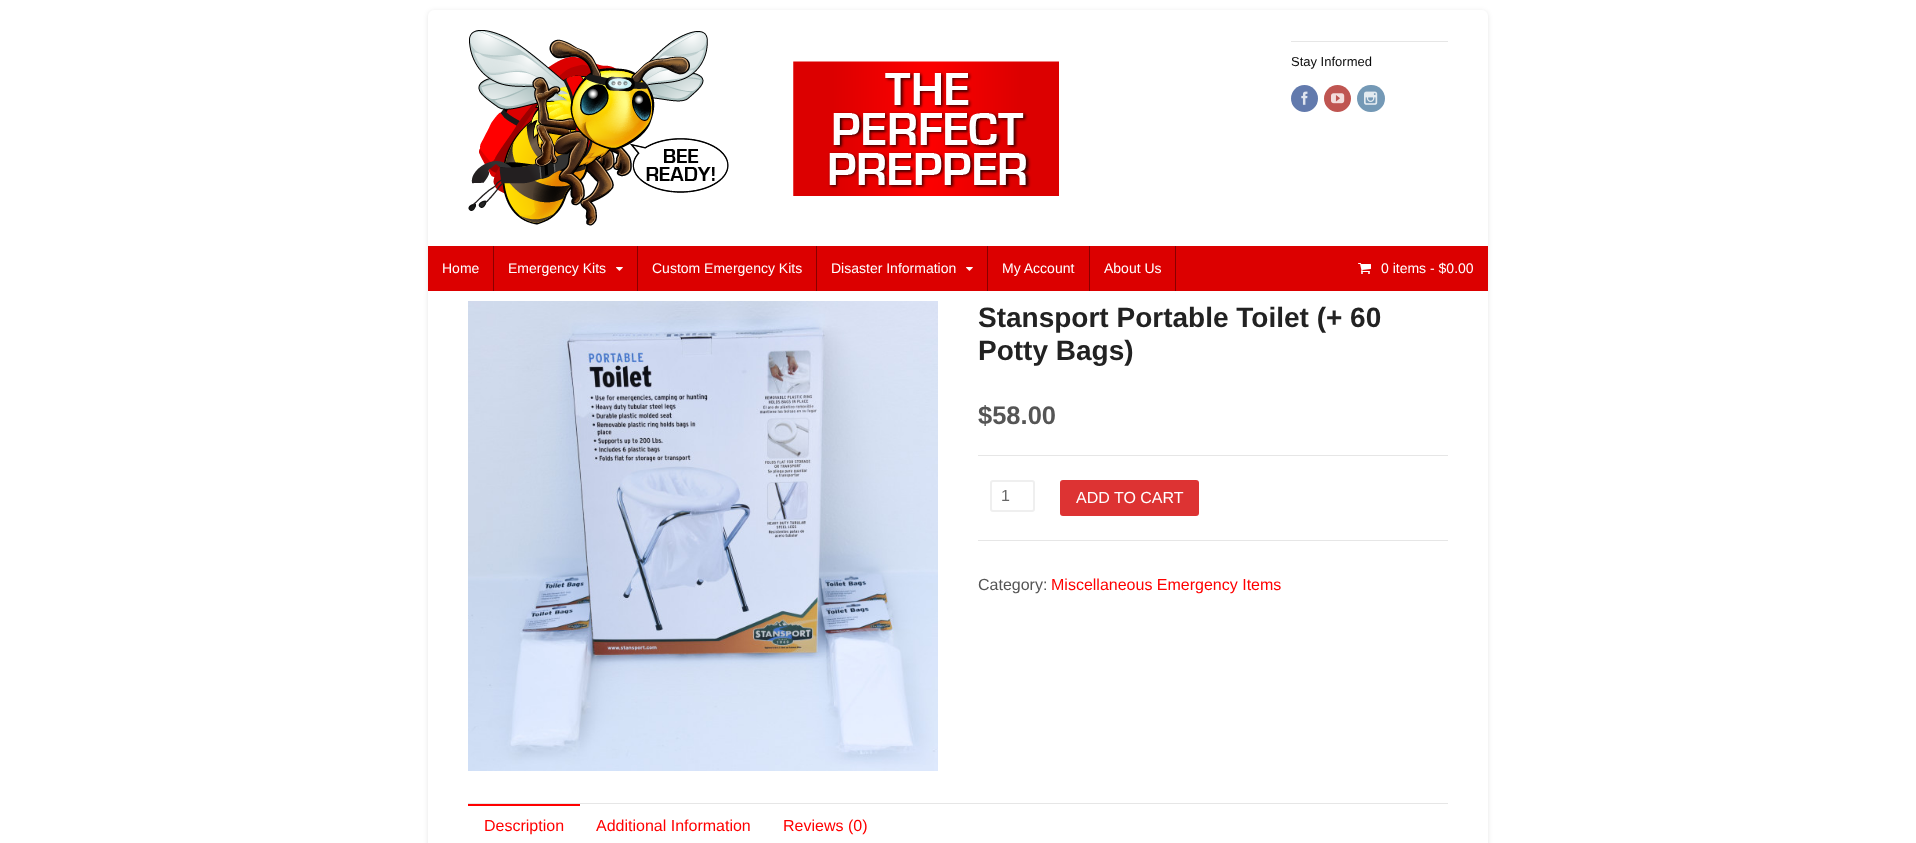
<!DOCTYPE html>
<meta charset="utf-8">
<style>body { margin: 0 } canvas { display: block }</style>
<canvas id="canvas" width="1916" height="843"></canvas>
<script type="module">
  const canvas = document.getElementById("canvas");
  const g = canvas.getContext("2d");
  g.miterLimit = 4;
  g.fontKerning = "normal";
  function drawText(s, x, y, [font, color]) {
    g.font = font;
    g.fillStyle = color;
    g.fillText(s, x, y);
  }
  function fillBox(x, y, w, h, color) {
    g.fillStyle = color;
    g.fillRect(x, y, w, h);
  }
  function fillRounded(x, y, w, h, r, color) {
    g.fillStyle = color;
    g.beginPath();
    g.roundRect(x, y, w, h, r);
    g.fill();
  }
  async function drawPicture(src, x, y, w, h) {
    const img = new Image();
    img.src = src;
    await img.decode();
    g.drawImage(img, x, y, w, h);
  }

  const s1 = ["13px Liberation Sans", "#0A0A0A"];
  const s2 = ["14px Liberation Sans", "#FFFFFF"];
  const s3 = ["bold 28px Liberation Sans", "#222222"];
  const s4 = ["bold 25.5px Liberation Sans", "#555555"];
  const s5 = ["16px Liberation Sans", "#666666"];
  const s6 = ["16px Liberation Sans", "#FFFFFF"];
  const s7 = ["16px Liberation Sans", "#555555"];
  const s8 = ["16px Liberation Sans", "#FF0000"];

  fillBox(0, 0, 1916, 843, "#FFFFFF");
  g.fillStyle = "rgba(0, 0, 0, 0.1)";
  g.filter = "blur(2.5px)";
  g.beginPath();
  g.roundRect(428, 11, 1060, 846, 6);
  g.fill();
  g.filter = "none";
  fillRounded(428, 10, 1060, 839, 6, "#FFFFFF");
  await drawPicture("pic1.png", 468, 30, 591, 196);
  fillBox(1291, 41, 157, 1, "#E6E6E6");
  drawText("Stay Informed", 1291, 66, s1);
  g.fillStyle = "#627AAD";
  g.beginPath();
  g.arc(1304.5, 98.5, 13.5, 0, Math.PI * 2);
  g.fill();
  await drawPicture("pic2.png", 1301, 91, 7, 14);
  g.fillStyle = "#BF5551";
  g.beginPath();
  g.arc(1337.5, 98.5, 13.5, 0, Math.PI * 2);
  g.fill();
  await drawPicture("pic3.png", 1331, 93, 14, 11);
  fillRounded(1357, 85, 28, 27, 13.5, "#7499B6");
  await drawPicture("pic4.png", 1364, 91, 14, 14);
  fillBox(428, 246, 1060, 45, "#DC0000");
  fillBox(493, 246, 1, 45, "#890000");
  drawText("Home", 442, 273, s2);
  fillBox(637, 246, 1, 45, "#890000");
  drawText("Emergency Kits", 508, 273, s2);
  await drawPicture("pic5.png", 616, 267, 7, 4);
  fillBox(816, 246, 1, 45, "#890000");
  drawText("Custom Emergency Kits", 652, 273, s2);
  fillBox(987, 246, 1, 45, "#890000");
  drawText("Disaster Information", 831, 273, s2);
  await drawPicture("pic5.png", 966, 267, 7, 4);
  fillBox(1089, 246, 1, 45, "#890000");
  drawText("My Account", 1002, 273, s2);
  fillBox(1175, 246, 1, 45, "#890000");
  drawText("About Us", 1104, 273, s2);
  await drawPicture("pic6.png", 1358, 263, 13, 11);
  drawText("0 items - $0.00", 1381, 273, s2);
  await drawPicture("pic7.png", 468, 301, 470, 470);
  drawText("Stansport Portable Toilet (+ 60", 978, 327, s3);
  drawText("Potty Bags)", 978, 360, s3);
  drawText("$58.00", 978, 424, s4);
  fillBox(978, 455, 470, 1, "#E6E6E6");
  fillBox(978, 540, 470, 1, "#E6E6E6");
  g.beginPath();
  g.roundRect(991, 481, 43, 30, 2);
  g.strokeStyle = "#EFEFEF";
  g.lineWidth = 2;
  g.stroke();
  drawText("1", 1001, 501, s5);
  fillRounded(1060, 480, 139, 36, 3, "#DD3333");
  drawText("ADD TO CART", 1076, 503, s6);
  drawText("Category:", 978, 590, s7);
  drawText("Miscellaneous Emergency Items", 1051, 590, s8);
  fillBox(468, 803, 980, 1, "#E6E6E6");
  fillBox(468, 804, 112, 2, "#FF0000");
  drawText("Description", 484, 831, s8);
  drawText("Additional Information", 596, 831, s8);
  drawText("Reviews (0)", 783, 831, s8);
</script>
